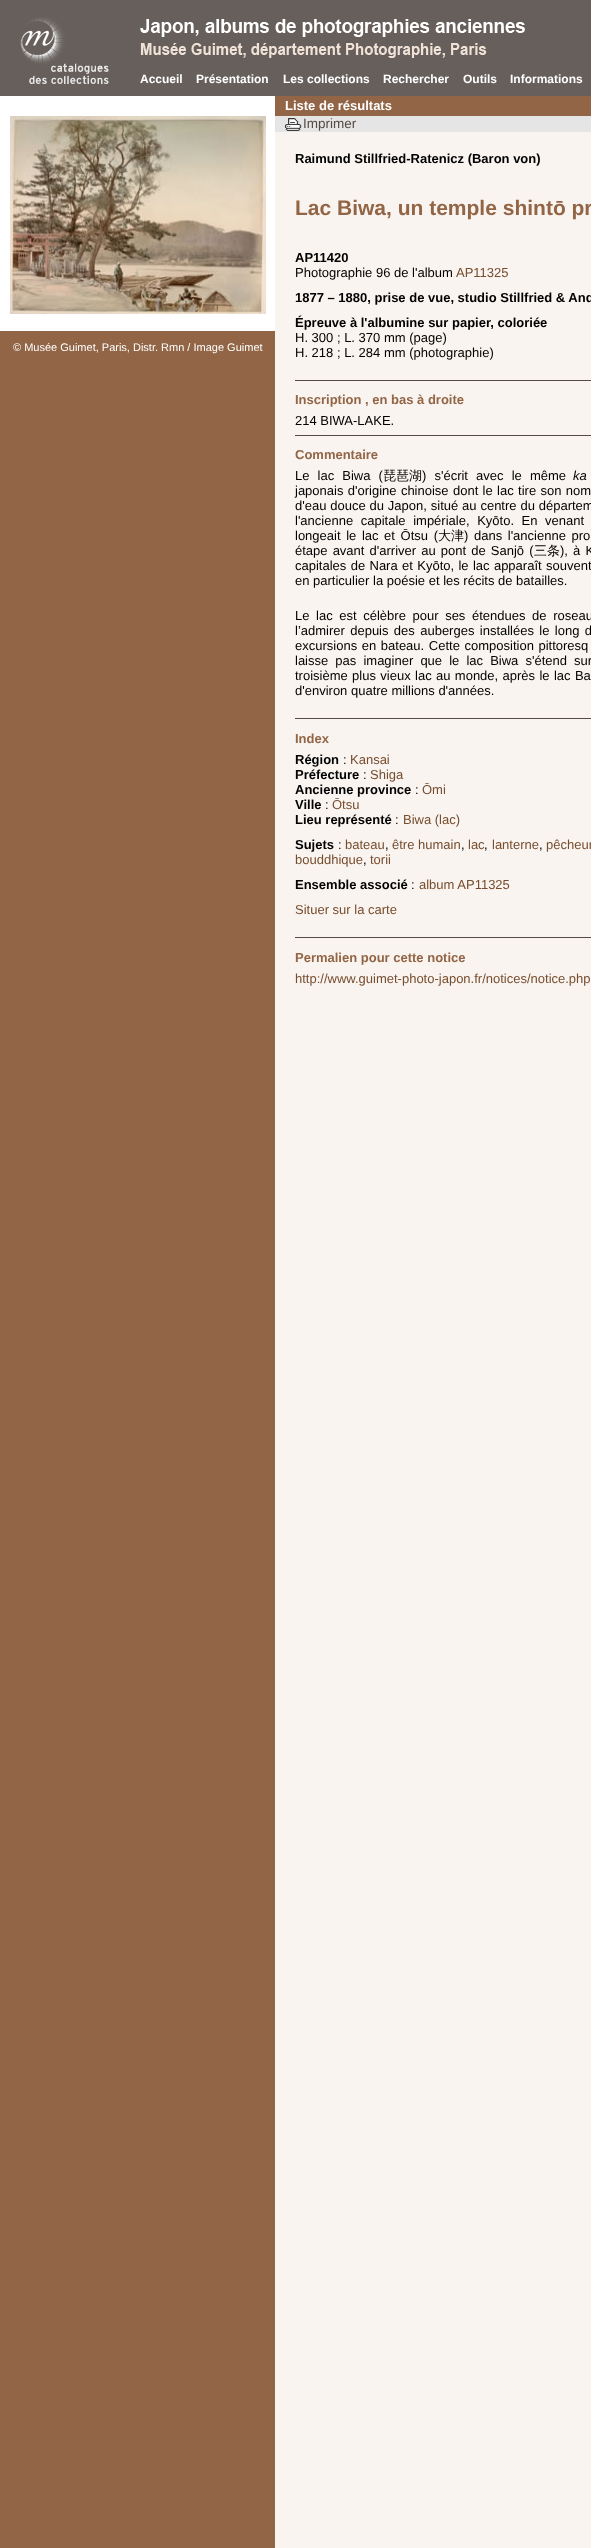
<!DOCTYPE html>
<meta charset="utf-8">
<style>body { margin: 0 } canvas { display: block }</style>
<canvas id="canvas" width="591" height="2548"></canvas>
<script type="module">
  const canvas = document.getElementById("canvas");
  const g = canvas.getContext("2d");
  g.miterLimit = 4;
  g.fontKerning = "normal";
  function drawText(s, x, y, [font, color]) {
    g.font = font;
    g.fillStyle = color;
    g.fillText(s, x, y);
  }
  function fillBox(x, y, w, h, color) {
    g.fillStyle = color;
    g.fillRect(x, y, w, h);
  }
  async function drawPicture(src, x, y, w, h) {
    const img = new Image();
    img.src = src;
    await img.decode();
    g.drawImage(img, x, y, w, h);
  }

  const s1 = ["bold 12px Liberation Sans", "#FFFFFF"];
  const s2 = ["11px Liberation Sans", "#FFFFFF"];
  const s3 = ["bold 13px Liberation Sans", "#FFFFFF"];
  const s4 = ["13.5px Liberation Sans", "#554B46"];
  const s5 = ["bold 13px Liberation Sans", "#000000"];
  const s6 = ["bold 21px Liberation Sans", "#916545"];
  const s7 = ["13px Liberation Sans", "#000000"];
  const s8 = ["13px Liberation Sans", "#764D2E"];
  const s9 = ["bold 13px Liberation Sans", "#916545"];
  const s10 = ["500 13px WenQuanYi Zen Hei", "#000000"];
  const s11 = ["italic 13px Liberation Sans", "#000000"];

  fillBox(0, 0, 591, 2548, "#FAF4F0");
  fillBox(0, 331, 275, 2217, "#916545");
  fillBox(0, 0, 591, 96, "#675F5C");
  await drawPicture("pic1.png", 20, 17, 89, 67);
  await drawPicture("pic2.png", 140, 19, 385, 39);
  drawText("Accueil", 140, 83, s1);
  drawText("Présentation", 196, 83, s1);
  drawText("Les collections", 283, 83, s1);
  drawText("Rechercher", 383, 83, s1);
  drawText("Outils", 463, 83, s1);
  drawText("Informations", 510, 83, s1);
  fillBox(0, 96, 275, 235, "#FFFFFF");
  await drawPicture("pic3.png", 10, 116, 256, 198);
  drawText("© Musée Guimet, Paris, Distr. Rmn / Image Guimet", 13, 351, s2);
  fillBox(275, 96, 316, 20, "#916545");
  drawText("Liste de résultats", 285, 110, s3);
  fillBox(275, 116, 316, 16, "#E5E5E5");
  await drawPicture("pic4.png", 285, 118, 17, 13);
  drawText("Imprimer", 303, 128, s4);
  drawText("Raimund Stillfried-Ratenicz (Baron von)", 295, 163, s5);
  drawText("Lac Biwa, un temple shintō pr", 295, 215, s6);
  drawText("AP11420", 295, 262, s5);
  drawText("Photographie 96 de l'album", 295, 277, s7);
  drawText("AP11325", 456, 277, s8);
  drawText("1877 – 1880, prise de vue, studio Stillfried & And", 295, 302, s5);
  drawText("Épreuve à l'albumine sur papier, coloriée", 295, 327, s5);
  drawText("H. 300 ; L. 370 mm (page)", 295, 342, s7);
  drawText("H. 218 ; L. 284 mm (photographie)", 295, 357, s7);
  fillBox(295, 380, 296, 1, "#554B46");
  drawText("Inscription , en bas à droite", 295, 404, s9);
  drawText("214 BIWA-LAKE.", 295, 425, s7);
  fillBox(295, 435, 296, 1, "#554B46");
  drawText("Commentaire", 295, 459, s9);
  g.wordSpacing = "4.5px";
  drawText("Le lac Biwa (", 295, 480, s7);
  g.wordSpacing = "0px";
  drawText("琵琶湖", 383, 480, s10);
  g.wordSpacing = "4.5px";
  drawText(") s'écrit avec le même", 422, 480, s7);
  g.wordSpacing = "0px";
  drawText("ka", 573, 480, s11);
  g.wordSpacing = "0.75px";
  drawText("japonais d'origine chinoise dont le lac tire son nom", 295, 495, s7);
  g.wordSpacing = "0.25px";
  drawText("d'eau douce du Japon, situé au centre du départem", 295, 510, s7);
  g.wordSpacing = "4px";
  drawText("l'ancienne capitale impériale, Kyōto. En venant", 295, 525, s7);
  g.wordSpacing = "2px";
  drawText("longeait le lac et Ōtsu (", 295, 540, s7);
  g.wordSpacing = "0px";
  drawText("大津", 438, 540, s10);
  g.wordSpacing = "2px";
  drawText(") dans l'ancienne pro", 464, 540, s7);
  g.wordSpacing = "1.5px";
  drawText("étape avant d'arriver au pont de Sanjō (", 295, 555, s7);
  g.wordSpacing = "0px";
  drawText("三条", 534, 555, s10);
  g.wordSpacing = "1.5px";
  drawText("), à K", 560, 555, s7);
  g.wordSpacing = "0.75px";
  drawText("capitales de Nara et Kyōto, le lac apparaît souvent", 295, 570, s7);
  g.wordSpacing = "0px";
  drawText("en particulier la poésie et les récits de batailles.", 295, 585, s7);
  g.wordSpacing = "3px";
  drawText("Le lac est célèbre pour ses étendues de roseau", 295, 620, s7);
  g.wordSpacing = "1.75px";
  drawText("l’admirer depuis des auberges installées le long d", 295, 635, s7);
  g.wordSpacing = "1px";
  drawText("excursions en bateau. Cette composition pittoresq", 295, 650, s7);
  g.wordSpacing = "3.5px";
  drawText("laisse pas imaginer que le lac Biwa s'étend sur", 295, 665, s7);
  g.wordSpacing = "0.75px";
  drawText("troisième plus vieux lac au monde, après le lac Ba", 295, 680, s7);
  g.wordSpacing = "0px";
  drawText("d'environ quatre millions d'années.", 295, 695, s7);
  fillBox(295, 718, 296, 1, "#554B46");
  drawText("Index", 295, 743, s9);
  drawText("Région", 295, 764, s5);
  drawText(":", 343, 764, s7);
  drawText("Kansai", 350, 764, s8);
  drawText("Préfecture", 295, 779, s5);
  drawText(":", 363, 779, s7);
  drawText("Shiga", 370, 779, s8);
  drawText("Ancienne province", 295, 794, s5);
  drawText(":", 415, 794, s7);
  drawText("Ōmi", 422, 794, s8);
  drawText("Ville", 295, 809, s5);
  drawText(":", 325, 809, s7);
  drawText("Ōtsu", 332, 809, s8);
  drawText("Lieu représenté", 295, 824, s5);
  drawText(":", 395, 824, s7);
  drawText("Biwa (lac)", 403, 824, s8);
  drawText("Sujets", 295, 849, s5);
  drawText(":", 338, 849, s7);
  drawText("bateau", 345, 849, s8);
  drawText(",", 385, 849, s7);
  drawText("être humain", 392, 849, s8);
  drawText(",", 461, 849, s7);
  drawText("lac", 468, 849, s8);
  drawText(",", 484, 849, s7);
  drawText("lanterne", 492, 849, s8);
  drawText(",", 539, 849, s7);
  drawText("pêcheur", 546, 849, s8);
  drawText("bouddhique", 295, 864, s8);
  drawText(",", 363, 864, s7);
  drawText("torii", 370, 864, s8);
  drawText("Ensemble associé", 295, 889, s5);
  drawText(":", 411, 889, s7);
  drawText("album AP11325", 419, 889, s8);
  drawText("Situer sur la carte", 295, 914, s8);
  fillBox(295, 937, 296, 1, "#554B46");
  drawText("Permalien pour cette notice", 295, 962, s9);
  drawText("http://www.guimet-photo-japon.fr/notices/notice.php", 295, 983, s8);
</script>
